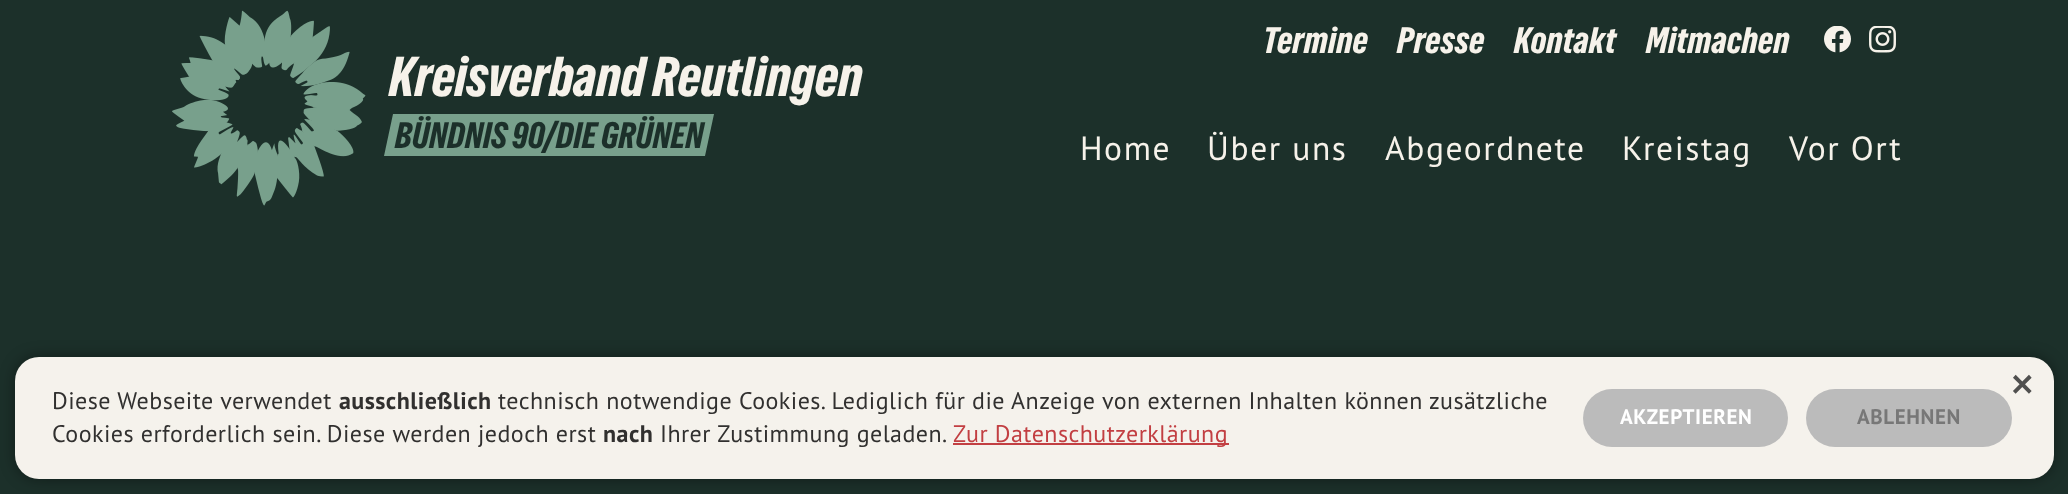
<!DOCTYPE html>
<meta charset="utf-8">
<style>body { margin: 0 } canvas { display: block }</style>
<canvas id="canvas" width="2068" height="494"></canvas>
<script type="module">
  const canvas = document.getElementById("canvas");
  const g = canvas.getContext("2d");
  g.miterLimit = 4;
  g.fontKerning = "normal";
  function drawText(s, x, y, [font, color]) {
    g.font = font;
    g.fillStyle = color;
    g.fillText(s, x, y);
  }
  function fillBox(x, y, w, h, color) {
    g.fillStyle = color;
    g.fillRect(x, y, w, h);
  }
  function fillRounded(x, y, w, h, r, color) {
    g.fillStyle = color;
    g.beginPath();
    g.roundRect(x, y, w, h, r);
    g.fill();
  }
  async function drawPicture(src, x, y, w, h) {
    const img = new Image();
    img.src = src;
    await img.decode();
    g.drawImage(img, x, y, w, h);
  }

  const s1 = ["34.5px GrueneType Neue", "#F6F2EA"];
  const s2 = ["52.5px GrueneType Neue", "#F6F2EA"];
  const s3 = ["34.5px GrueneType Neue", "#1C302A"];
  const s4 = ["33.5px PT Sans", "#F6F2EA"];
  const s5 = ["52.5px PT Sans", "#50504F"];
  const s6 = ["24px PT Sans", "#31302F"];
  const s7 = ["bold 24px PT Sans", "#31302F"];
  const s8 = ["24px PT Sans", "#C23F42"];
  const s9 = ["bold 21px PT Sans", "#FFFFFF"];
  const s10 = ["bold 21px PT Sans", "#777777"];

  fillBox(0, 0, 2068, 494, "#1C302A");
  g.letterSpacing = "0.25px";
  drawText("Termine", 1263, 53, s1);
  drawText("Presse", 1397, 53, s1);
  drawText("Kontakt", 1514, 53, s1);
  drawText("Mitmachen", 1646, 53, s1);
  await drawPicture("pic1.png", 1824, 26, 27, 27);
  await drawPicture("pic2.png", 1869, 26, 27, 27);
  await drawPicture("pic3.png", 172, 10, 194, 196);
  g.letterSpacing = "0px";
  drawText("Kreisverband Reutlingen", 389, 96, s2);
  g.fillStyle = "#78A08C";
  g.beginPath();
  g.moveTo(393, 114);
  g.lineTo(714, 114);
  g.lineTo(705, 156);
  g.lineTo(384, 156);
  g.closePath();
  g.fill();
  drawText("BÜNDNIS 90/DIE GRÜNEN", 395, 148, s3);
  g.letterSpacing = "1.6px";
  drawText("Home", 1080, 160, s4);
  drawText("Über uns", 1207, 160, s4);
  drawText("Abgeordnete", 1385, 160, s4);
  drawText("Kreistag", 1622, 160, s4);
  drawText("Vor Ort", 1789, 160, s4);
  g.fillStyle = "rgba(0, 0, 0, 0.4)";
  g.filter = "blur(7.5px)";
  g.beginPath();
  g.roundRect(15, 357, 2039, 122, 24);
  g.fill();
  g.filter = "none";
  fillRounded(15, 357, 2039, 122, 24, "#F5F2EC");
  g.letterSpacing = "0px";
  drawText("×", 2009, 402, s5);
  g.letterSpacing = "0.45px";
  drawText("Diese Webseite verwendet", 52, 409, s6);
  drawText("ausschließlich", 339, 409, s7);
  drawText("technisch notwendige Cookies. Lediglich für die Anzeige von externen Inhalten können zusätzliche", 498, 409, s6);
  drawText("Cookies erforderlich sein. Diese werden jedoch erst", 52, 442, s6);
  drawText("nach", 603, 442, s7);
  drawText("Ihrer Zustimmung geladen.", 660, 442, s6);
  fillBox(953, 443, 276, 2, "#C23F42");
  drawText("Zur Datenschutzerklärung", 953, 442, s8);
  fillRounded(1583, 389, 205, 58, 29, "#BBBBBB");
  g.letterSpacing = "0.6px";
  drawText("AKZEPTIEREN", 1620, 424, s9);
  fillRounded(1806, 389, 206, 58, 29, "#BBBBBB");
  drawText("ABLEHNEN", 1857, 424, s10);
</script>
